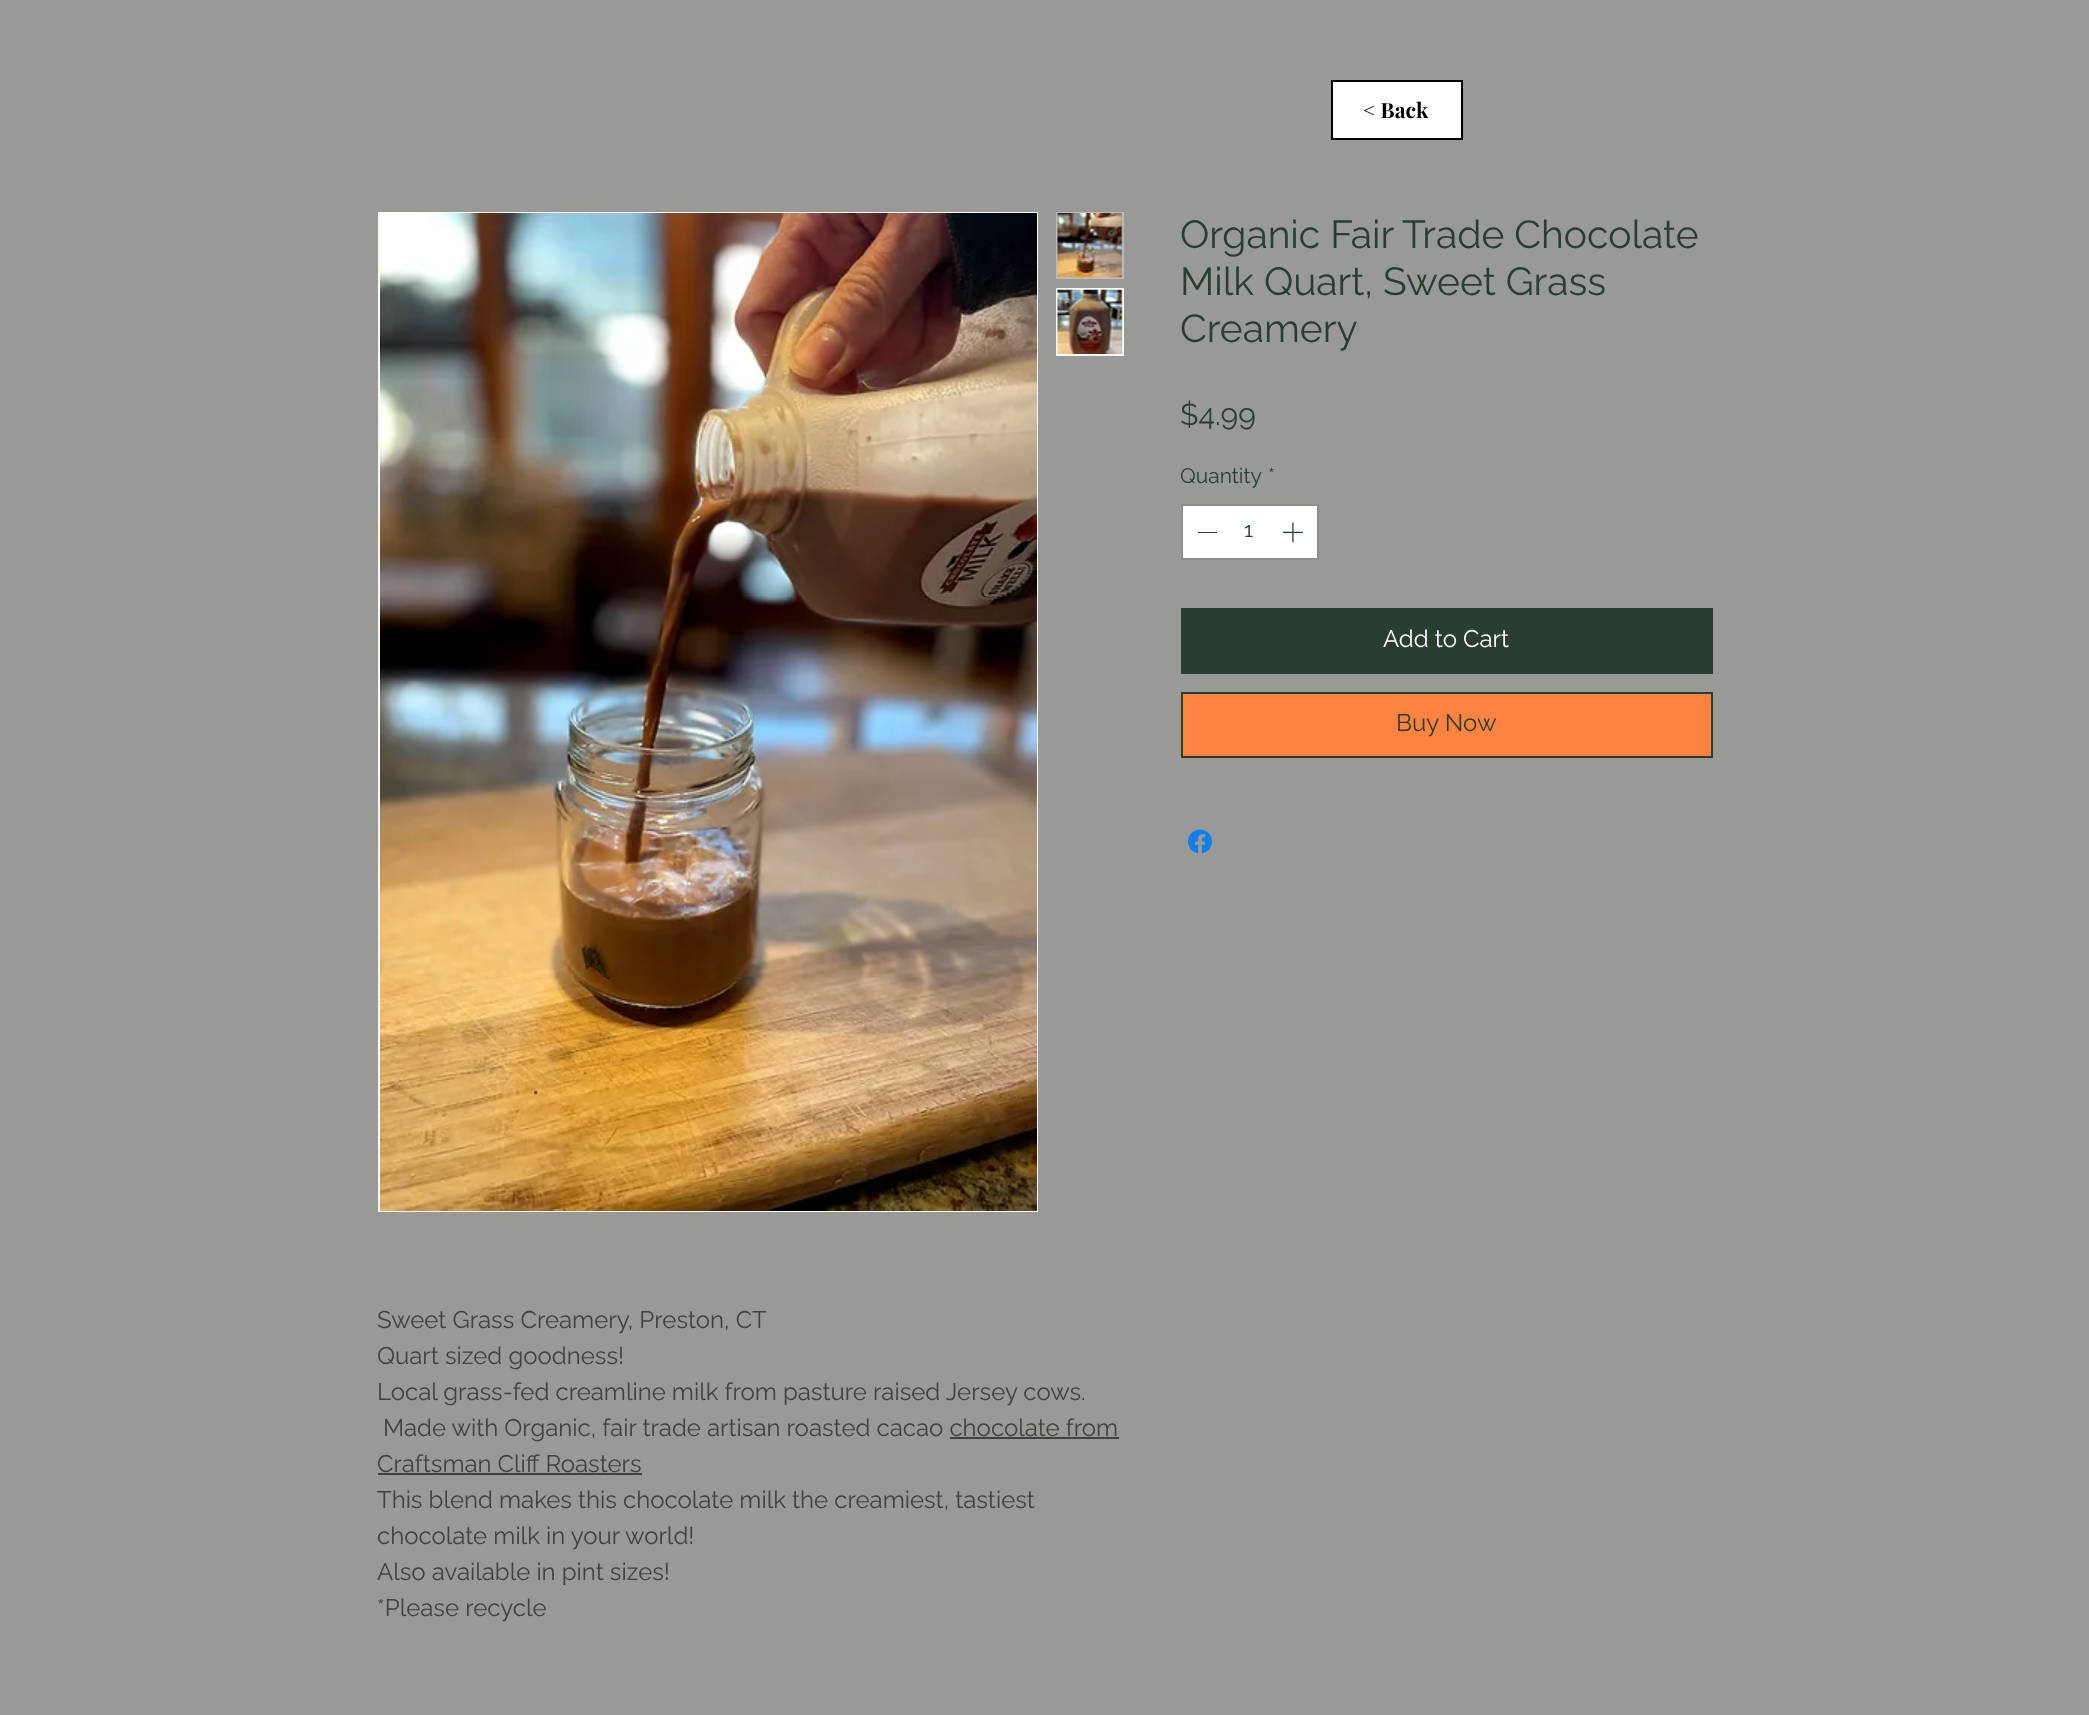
<!DOCTYPE html>
<meta charset="utf-8">
<style>body { margin: 0 } canvas { display: block }</style>
<canvas id="canvas" width="2089" height="1715"></canvas>
<script type="module">
  const canvas = document.getElementById("canvas");
  const g = canvas.getContext("2d");
  g.miterLimit = 4;
  g.fontKerning = "normal";
  function drawText(s, x, y, [font, color]) {
    g.font = font;
    g.fillStyle = color;
    g.fillText(s, x, y);
  }
  function fillBox(x, y, w, h, color) {
    g.fillStyle = color;
    g.fillRect(x, y, w, h);
  }
  async function drawPicture(src, x, y, w, h) {
    const img = new Image();
    img.src = src;
    await img.decode();
    g.drawImage(img, x, y, w, h);
  }

  const s1 = ["bold 21px Playfair Display", "#000000"];
  const s2 = ["39px Raleway", "#293E31"];
  const s3 = ["30px Raleway", "#293E31"];
  const s4 = ["21px Raleway", "#293E31"];
  const s5 = ["24px Raleway", "#FFFFFF"];
  const s6 = ["24px Raleway", "#293E31"];
  const s7 = ["24px Raleway", "#414141"];

  fillBox(0, 0, 2089, 1715, "#999997");
  g.fillStyle = "#FFFFFF";
  g.beginPath();
  g.rect(1332, 81, 130, 58);
  g.fill();
  g.strokeStyle = "#000000";
  g.lineWidth = 2;
  g.stroke();
  drawText("< Back", 1363, 118, s1);
  drawText("Organic Fair Trade Chocolate", 1180, 248, s2);
  drawText("Milk Quart, Sweet Grass", 1180, 295, s2);
  drawText("Creamery", 1180, 342, s2);
  drawText("$4.99", 1180, 425, s3);
  drawText("Quantity", 1180, 483, s4);
  drawText("*", 1268, 483, s4);
  g.fillStyle = "#FFFFFF";
  g.beginPath();
  g.rect(1182, 505, 136, 54);
  g.fill();
  g.strokeStyle = "#8D8D8D";
  g.stroke();
  fillBox(1198, 532, 19, 1, "#293E31");
  drawText("1", 1244, 537, s4);
  await drawPicture("pic1.png", 1283, 522, 20, 21);
  fillBox(1181, 608, 532, 66, "#293E31");
  drawText("Add to Cart", 1383, 647, s5);
  g.fillStyle = "#FE8340";
  g.beginPath();
  g.rect(1182, 693, 530, 64);
  g.fill();
  g.strokeStyle = "#293E31";
  g.stroke();
  drawText("Buy Now", 1396, 731, s6);
  await drawPicture("pic2.png", 1188, 829, 24, 25);
  g.strokeStyle = "#FCF9F4";
  g.strokeRect(379, 213, 658, 998);
  await drawPicture("pic3.png", 380, 213, 657, 998);
  g.strokeStyle = "#BCBCBC";
  g.strokeRect(1057, 213, 66, 65);
  await drawPicture("pic4.png", 1057, 213, 66, 65);
  g.strokeStyle = "#FCF9F4";
  g.strokeRect(1057, 289, 66, 66);
  await drawPicture("pic5.png", 1057, 289, 66, 65);
  drawText("Sweet Grass Creamery, Preston, CT", 377, 1328, s7);
  drawText("Quart sized goodness!", 377, 1364, s7);
  drawText("Local grass-fed creamline milk from pasture raised Jersey cows.", 377, 1400, s7);
  drawText("Made with Organic, fair trade artisan roasted cacao chocolate from", 383, 1436, s7);
  drawText("Craftsman Cliff Roasters", 377, 1472, s7);
  fillBox(950, 1437, 169, 2, "#414141");
  fillBox(378, 1473, 264, 2, "#414141");
  drawText("This blend makes this chocolate milk the creamiest, tastiest", 377, 1508, s7);
  drawText("chocolate milk in your world!", 377, 1544, s7);
  drawText("Also available in pint sizes!", 377, 1580, s7);
  drawText("*Please recycle", 377, 1616, s7);
</script>
